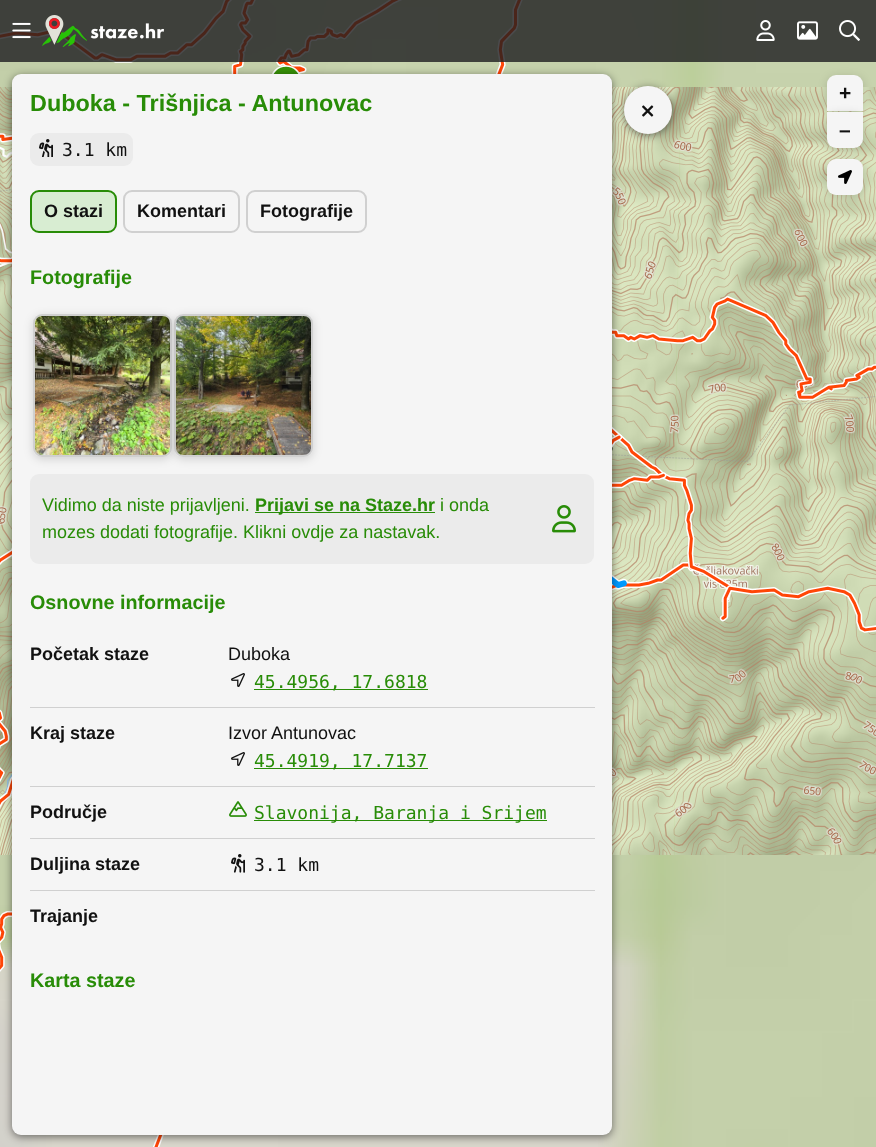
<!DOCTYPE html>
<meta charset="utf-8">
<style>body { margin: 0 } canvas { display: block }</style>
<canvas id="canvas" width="876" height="1147"></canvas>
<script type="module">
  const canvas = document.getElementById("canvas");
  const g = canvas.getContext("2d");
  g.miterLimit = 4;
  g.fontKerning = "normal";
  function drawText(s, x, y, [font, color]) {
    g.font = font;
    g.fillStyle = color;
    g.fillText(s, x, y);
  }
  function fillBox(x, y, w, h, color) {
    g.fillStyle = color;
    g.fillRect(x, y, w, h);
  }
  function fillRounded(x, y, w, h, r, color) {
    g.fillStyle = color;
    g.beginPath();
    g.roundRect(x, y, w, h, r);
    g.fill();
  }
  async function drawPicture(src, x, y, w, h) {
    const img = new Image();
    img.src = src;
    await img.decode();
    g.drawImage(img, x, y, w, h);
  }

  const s1 = ["bold 23.4px Liberation Sans", "#288C07"];
  const s2 = ["18px DejaVu Sans Mono", "#111111"];
  const s3 = ["bold 18px Liberation Sans", "#111111"];
  const s4 = ["bold 19.75px Liberation Sans", "#288C07"];
  const s5 = ["18px Liberation Sans", "#288C07"];
  const s6 = ["bold 18px Liberation Sans", "#288C07"];
  const s7 = ["18px Liberation Sans", "#111111"];
  const s8 = ["18px DejaVu Sans Mono", "#288C07"];
  const s9 = ["bold 21px Liberation Sans", "#111111"];

  fillBox(0, 0, 876, 1147, "#FFFFFF");
  await drawPicture("pic14.png", 0, 0, 876, 1147);
  g.fillStyle = "rgba(0, 0, 0, 0.15)";
  g.filter = "blur(5px)";
  g.beginPath();
  g.roundRect(827, 77, 36, 36, 9);
  g.fill();
  g.filter = "none";
  fillBox(0, 0, 876, 62, "rgba(29, 29, 31, 0.8)");
  await drawPicture("pic1.png", 12, 22, 19, 17);
  await drawPicture("pic2.png", 42, 15, 122, 32);
  await drawPicture("pic3.png", 756, 20, 19, 21);
  await drawPicture("pic4.png", 797, 21, 21, 19);
  await drawPicture("pic5.png", 839, 20, 21, 21);
  g.fillStyle = "rgba(0, 0, 0, 0.5)";
  g.filter = "blur(4px)";
  g.beginPath();
  g.roundRect(12, 76, 600, 1061, 9);
  g.fill();
  g.filter = "none";
  fillRounded(12, 74, 600, 1061, 9, "#F5F5F5");
  drawText("Duboka - Trišnjica - Antunovac", 30, 111, s1);
  fillRounded(30, 133, 103, 33, 9, "#EBEBEB");
  await drawPicture("pic6.png", 39, 139, 14, 18);
  drawText("3.1 km", 62, 156, s2);
  g.fillStyle = "#D8EDD2";
  g.beginPath();
  g.roundRect(31, 191, 85, 41, 8);
  g.fill();
  g.strokeStyle = "#288C07";
  g.lineWidth = 2;
  g.stroke();
  drawText("O stazi", 44, 217, s3);
  g.beginPath();
  g.roundRect(124, 191, 115, 41, 8);
  g.strokeStyle = "#D0D0D0";
  g.stroke();
  drawText("Komentari", 137, 217, s3);
  g.beginPath();
  g.roundRect(247, 191, 119, 41, 8);
  g.stroke();
  drawText("Fotografije", 260, 217, s3);
  drawText("Fotografije", 30, 284, s4);
  fillRounded(30, 474, 564, 90, 9, "#EBEBEB");
  g.save();
  g.beginPath();
  g.moveTo(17, 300);
  g.lineTo(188, 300);
  g.lineTo(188, 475);
  g.lineTo(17, 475);
  g.closePath();
  g.moveTo(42, 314);
  g.lineTo(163, 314);
  g.bezierCurveTo(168, 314, 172, 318, 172, 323);
  g.lineTo(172, 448);
  g.bezierCurveTo(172, 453, 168, 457, 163, 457);
  g.lineTo(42, 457);
  g.bezierCurveTo(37, 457, 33, 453, 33, 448);
  g.lineTo(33, 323);
  g.bezierCurveTo(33, 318, 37, 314, 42, 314);
  g.closePath();
  g.clip("evenodd");
  g.fillStyle = "rgba(0, 0, 0, 0.15)";
  g.filter = "blur(5px)";
  g.beginPath();
  g.roundRect(33, 316, 139, 143, 9);
  g.fill();
  g.filter = "none";
  g.restore();
  g.beginPath();
  g.roundRect(34, 315, 137, 141, 8);
  g.strokeStyle = "rgba(0, 0, 0, 0.15)";
  g.stroke();
  await drawPicture("pic7.png", 35, 316, 135, 139);
  g.save();
  g.beginPath();
  g.moveTo(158, 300);
  g.lineTo(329, 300);
  g.lineTo(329, 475);
  g.lineTo(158, 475);
  g.closePath();
  g.moveTo(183, 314);
  g.lineTo(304, 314);
  g.bezierCurveTo(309, 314, 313, 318, 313, 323);
  g.lineTo(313, 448);
  g.bezierCurveTo(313, 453, 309, 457, 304, 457);
  g.lineTo(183, 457);
  g.bezierCurveTo(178, 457, 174, 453, 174, 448);
  g.lineTo(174, 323);
  g.bezierCurveTo(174, 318, 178, 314, 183, 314);
  g.closePath();
  g.clip("evenodd");
  g.fillStyle = "rgba(0, 0, 0, 0.15)";
  g.filter = "blur(5px)";
  g.beginPath();
  g.roundRect(174, 316, 139, 143, 9);
  g.fill();
  g.filter = "none";
  g.restore();
  g.beginPath();
  g.roundRect(175, 315, 137, 141, 8);
  g.stroke();
  await drawPicture("pic8.png", 176, 316, 135, 139);
  drawText("Vidimo da niste prijavljeni.", 42, 511, s5);
  fillBox(255, 512, 180, 1, "#288C07");
  drawText("Prijavi se na Staze.hr", 255, 511, s6);
  drawText("i onda", 440, 511, s5);
  drawText("mozes dodati fotografije. Klikni ovdje za nastavak.", 42, 538, s5);
  await drawPicture("pic9.png", 552, 505, 24, 28);
  drawText("Osnovne informacije", 30, 609, s4);
  drawText("Početak staze", 30, 660, s3);
  drawText("Duboka", 228, 660, s7);
  await drawPicture("pic10.png", 231, 673, 14, 14);
  fillBox(254, 689, 174, 1, "#288C07");
  drawText("45.4956, 17.6818", 254, 688, s8);
  fillBox(30, 707, 565, 1, "#D0D0D0");
  drawText("Kraj staze", 30, 739, s3);
  drawText("Izvor Antunovac", 228, 739, s7);
  await drawPicture("pic10.png", 231, 752, 14, 14);
  fillBox(254, 768, 174, 1, "#288C07");
  drawText("45.4919, 17.7137", 254, 767, s8);
  fillBox(30, 786, 565, 1, "#D0D0D0");
  drawText("Područje", 30, 818, s3);
  await drawPicture("pic11.png", 229, 801, 18, 16);
  fillBox(254, 820, 293, 1, "#288C07");
  drawText("Slavonija, Baranja i Srijem", 254, 819, s8);
  fillBox(30, 838, 565, 1, "#D0D0D0");
  drawText("Duljina staze", 30, 870, s3);
  await drawPicture("pic12.png", 231, 854, 14, 19);
  drawText("3.1 km", 254, 871, s2);
  fillBox(30, 890, 565, 1, "#D0D0D0");
  drawText("Trajanje", 30, 922, s3);
  drawText("Karta staze", 30, 987, s4);
  g.fillStyle = "rgba(0, 0, 0, 0.5)";
  g.filter = "blur(4px)";
  g.beginPath();
  g.roundRect(624, 88, 48, 48, 24);
  g.fill();
  g.filter = "none";
  g.fillStyle = "#F5F5F5";
  g.beginPath();
  g.arc(648, 110, 24, 0, Math.PI * 2);
  g.fill();
  await drawPicture("pic13.png", 642, 105, 12, 12);
  g.beginPath();
  g.roundRect(827, 75, 36, 36, [9, 9, 0, 0]);
  g.fill();
  g.fillStyle = "rgba(0, 0, 0, 0.15)";
  g.filter = "blur(5px)";
  g.beginPath();
  g.roundRect(827, 114, 36, 36, 9);
  g.fill();
  g.filter = "none";
  drawText("+", 839, 100, s9);
  g.fillStyle = "#F5F5F5";
  g.beginPath();
  g.roundRect(827, 112, 36, 36, [0, 0, 9, 9]);
  g.fill();
  drawText("–", 839, 137, s9);
  g.fillStyle = "rgba(0, 0, 0, 0.15)";
  g.filter = "blur(5px)";
  g.beginPath();
  g.roundRect(827, 161, 36, 36, 9);
  g.fill();
  g.filter = "none";
  fillRounded(827, 159, 36, 36, 9, "#F5F5F5");
  await drawPicture("pic15.png", 838, 170, 14, 14);
</script>
